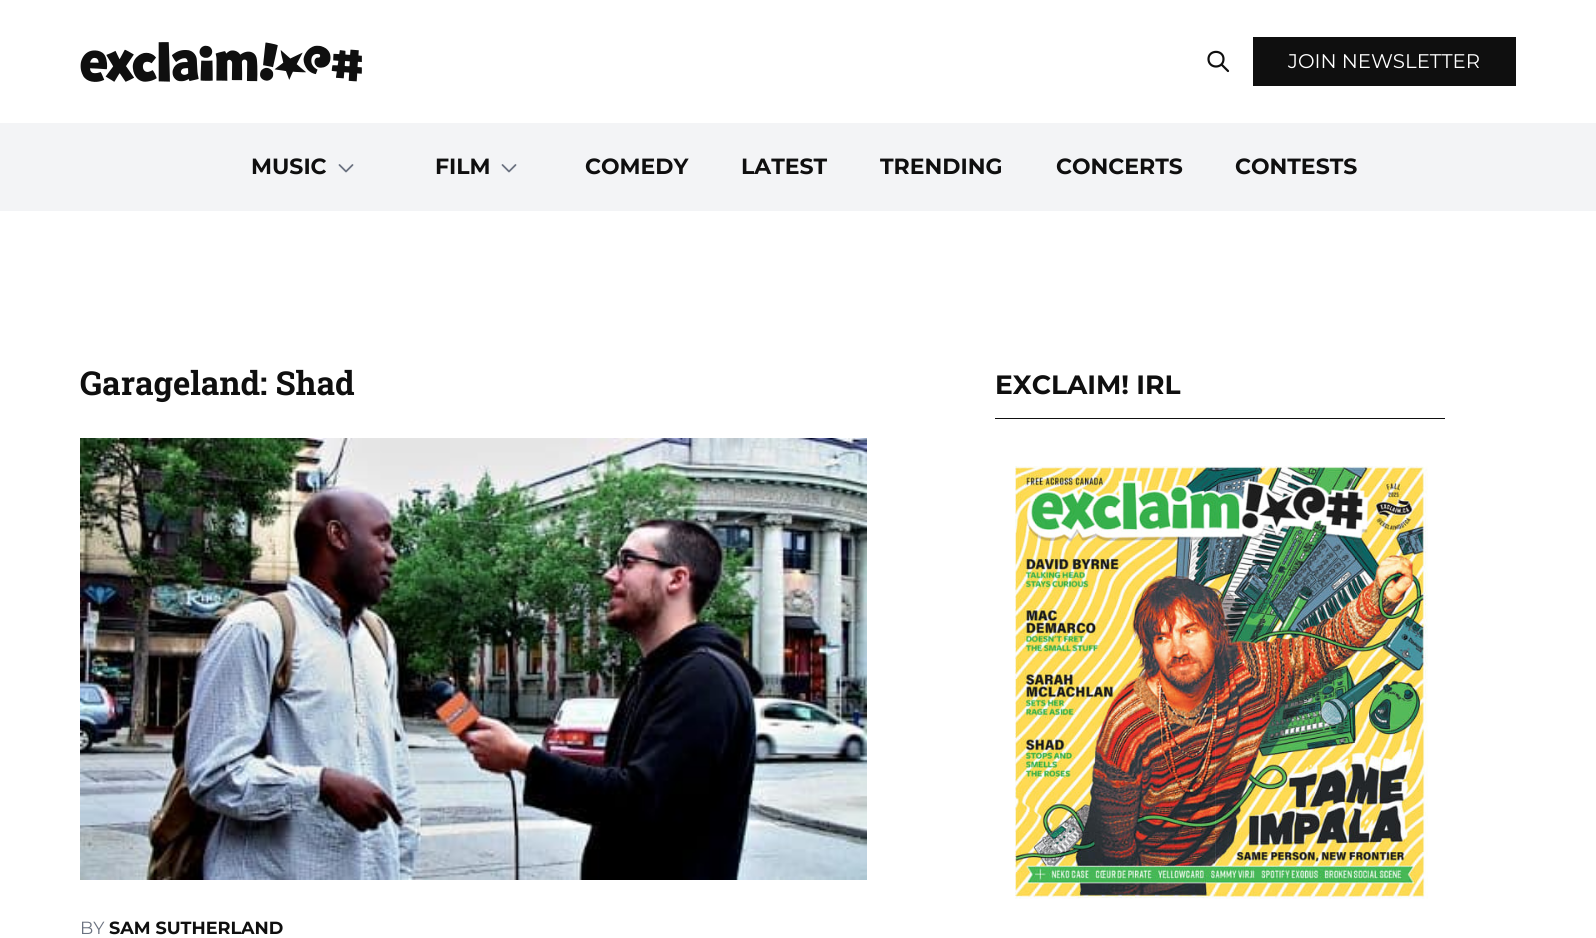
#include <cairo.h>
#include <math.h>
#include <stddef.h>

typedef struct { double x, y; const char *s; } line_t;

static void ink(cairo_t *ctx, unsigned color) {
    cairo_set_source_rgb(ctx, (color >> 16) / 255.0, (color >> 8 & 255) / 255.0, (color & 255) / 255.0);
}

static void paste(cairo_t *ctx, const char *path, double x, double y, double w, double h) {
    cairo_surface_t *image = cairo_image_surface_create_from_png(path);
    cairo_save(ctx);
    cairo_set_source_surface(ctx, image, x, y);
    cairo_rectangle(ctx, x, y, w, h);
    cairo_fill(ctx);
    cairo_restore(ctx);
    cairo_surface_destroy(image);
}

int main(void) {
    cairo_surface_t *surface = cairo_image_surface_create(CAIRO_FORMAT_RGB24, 1596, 938);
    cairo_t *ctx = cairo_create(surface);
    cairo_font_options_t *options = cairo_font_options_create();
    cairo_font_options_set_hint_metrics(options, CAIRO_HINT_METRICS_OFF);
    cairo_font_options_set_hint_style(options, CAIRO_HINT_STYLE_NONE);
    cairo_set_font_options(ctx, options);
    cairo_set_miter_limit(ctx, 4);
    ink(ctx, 0xFFFFFF);
    cairo_paint(ctx);
    paste(ctx, "media/1.png", 80, 42, 282, 40);
    cairo_new_path(ctx);
    cairo_move_to(ctx, 1228, 71);
    cairo_line_to(ctx, 1221.5, 64.5);
    cairo_move_to(ctx, 1223.5, 59);
    cairo_curve_to(ctx, 1223.5, 69, 1208.5, 69, 1208.5, 59);
    cairo_curve_to(ctx, 1208.5, 49.5, 1223.5, 49.5, 1223.5, 59);
    cairo_close_path(ctx);
    ink(ctx, 0x0F0F0F);
    cairo_set_line_width(ctx, 2.2);
    cairo_set_line_cap(ctx, CAIRO_LINE_CAP_ROUND);
    cairo_set_line_join(ctx, CAIRO_LINE_JOIN_ROUND);
    cairo_stroke(ctx);
    cairo_rectangle(ctx, 1253, 37, 263, 49);
    cairo_fill(ctx);
    cairo_select_font_face(ctx, "Montserrat", CAIRO_FONT_SLANT_NORMAL, CAIRO_FONT_WEIGHT_NORMAL);
    cairo_set_font_size(ctx, 19.75);
    ink(ctx, 0xFFFFFF);
    cairo_move_to(ctx, 1288, 68);
    cairo_show_text(ctx, "JOIN NEWSLETTER");
    ink(ctx, 0xF3F4F6);
    cairo_rectangle(ctx, 0, 123, 1596, 88);
    cairo_fill(ctx);
    cairo_select_font_face(ctx, "Montserrat", CAIRO_FONT_SLANT_NORMAL, CAIRO_FONT_WEIGHT_BOLD);
    cairo_set_font_size(ctx, 22);
    ink(ctx, 0x0F0F0F);
    cairo_move_to(ctx, 251, 174);
    cairo_show_text(ctx, "MUSIC");
    cairo_new_path(ctx);
    cairo_move_to(ctx, 352.5, 165);
    cairo_line_to(ctx, 346, 171.5);
    cairo_line_to(ctx, 339.5, 165);
    ink(ctx, 0x6B7280);
    cairo_set_line_width(ctx, 1.8);
    cairo_stroke(ctx);
    ink(ctx, 0x0F0F0F);
    cairo_move_to(ctx, 435, 174);
    cairo_show_text(ctx, "FILM");
    cairo_new_path(ctx);
    cairo_move_to(ctx, 515.5, 165);
    cairo_line_to(ctx, 509, 171.5);
    cairo_line_to(ctx, 502.5, 165);
    ink(ctx, 0x6B7280);
    cairo_stroke(ctx);
    ink(ctx, 0x0F0F0F);
    {
        static const line_t items[] = {
            {585, 174, "COMEDY"},
            {741, 174, "LATEST"},
            {880, 174, "TRENDING"},
            {1056, 174, "CONCERTS"},
            {1235, 174, "CONTESTS"},
        };
        for (size_t i = 0; i < sizeof items / sizeof *items; i++) {
            cairo_move_to(ctx, items[i].x, items[i].y);
            cairo_show_text(ctx, items[i].s);
        }
    }
    cairo_select_font_face(ctx, "Roboto Slab", CAIRO_FONT_SLANT_NORMAL, CAIRO_FONT_WEIGHT_BOLD);
    cairo_set_font_size(ctx, 33);
    cairo_move_to(ctx, 80, 395);
    cairo_show_text(ctx, "Garageland: Shad");
    paste(ctx, "media/2.png", 80, 438, 787, 442);
    cairo_select_font_face(ctx, "Montserrat", CAIRO_FONT_SLANT_NORMAL, CAIRO_FONT_WEIGHT_NORMAL);
    cairo_set_font_size(ctx, 17.6);
    ink(ctx, 0x6B7280);
    cairo_move_to(ctx, 80, 934);
    cairo_show_text(ctx, "BY");
    cairo_select_font_face(ctx, "Montserrat", CAIRO_FONT_SLANT_NORMAL, CAIRO_FONT_WEIGHT_BOLD);
    ink(ctx, 0x0F0F0F);
    cairo_move_to(ctx, 109, 934);
    cairo_show_text(ctx, "SAM SUTHERLAND");
    cairo_rectangle(ctx, 995, 418, 450, 1);
    cairo_fill(ctx);
    cairo_set_font_size(ctx, 26.5);
    cairo_move_to(ctx, 995, 394);
    cairo_show_text(ctx, "EXCLAIM! IRL");
    paste(ctx, "media/3.png", 1015, 466, 413, 433);
    cairo_surface_write_to_png(surface, "image.png");
    cairo_font_options_destroy(options);
    cairo_destroy(ctx);
    cairo_surface_destroy(surface);
    return 0;
}
